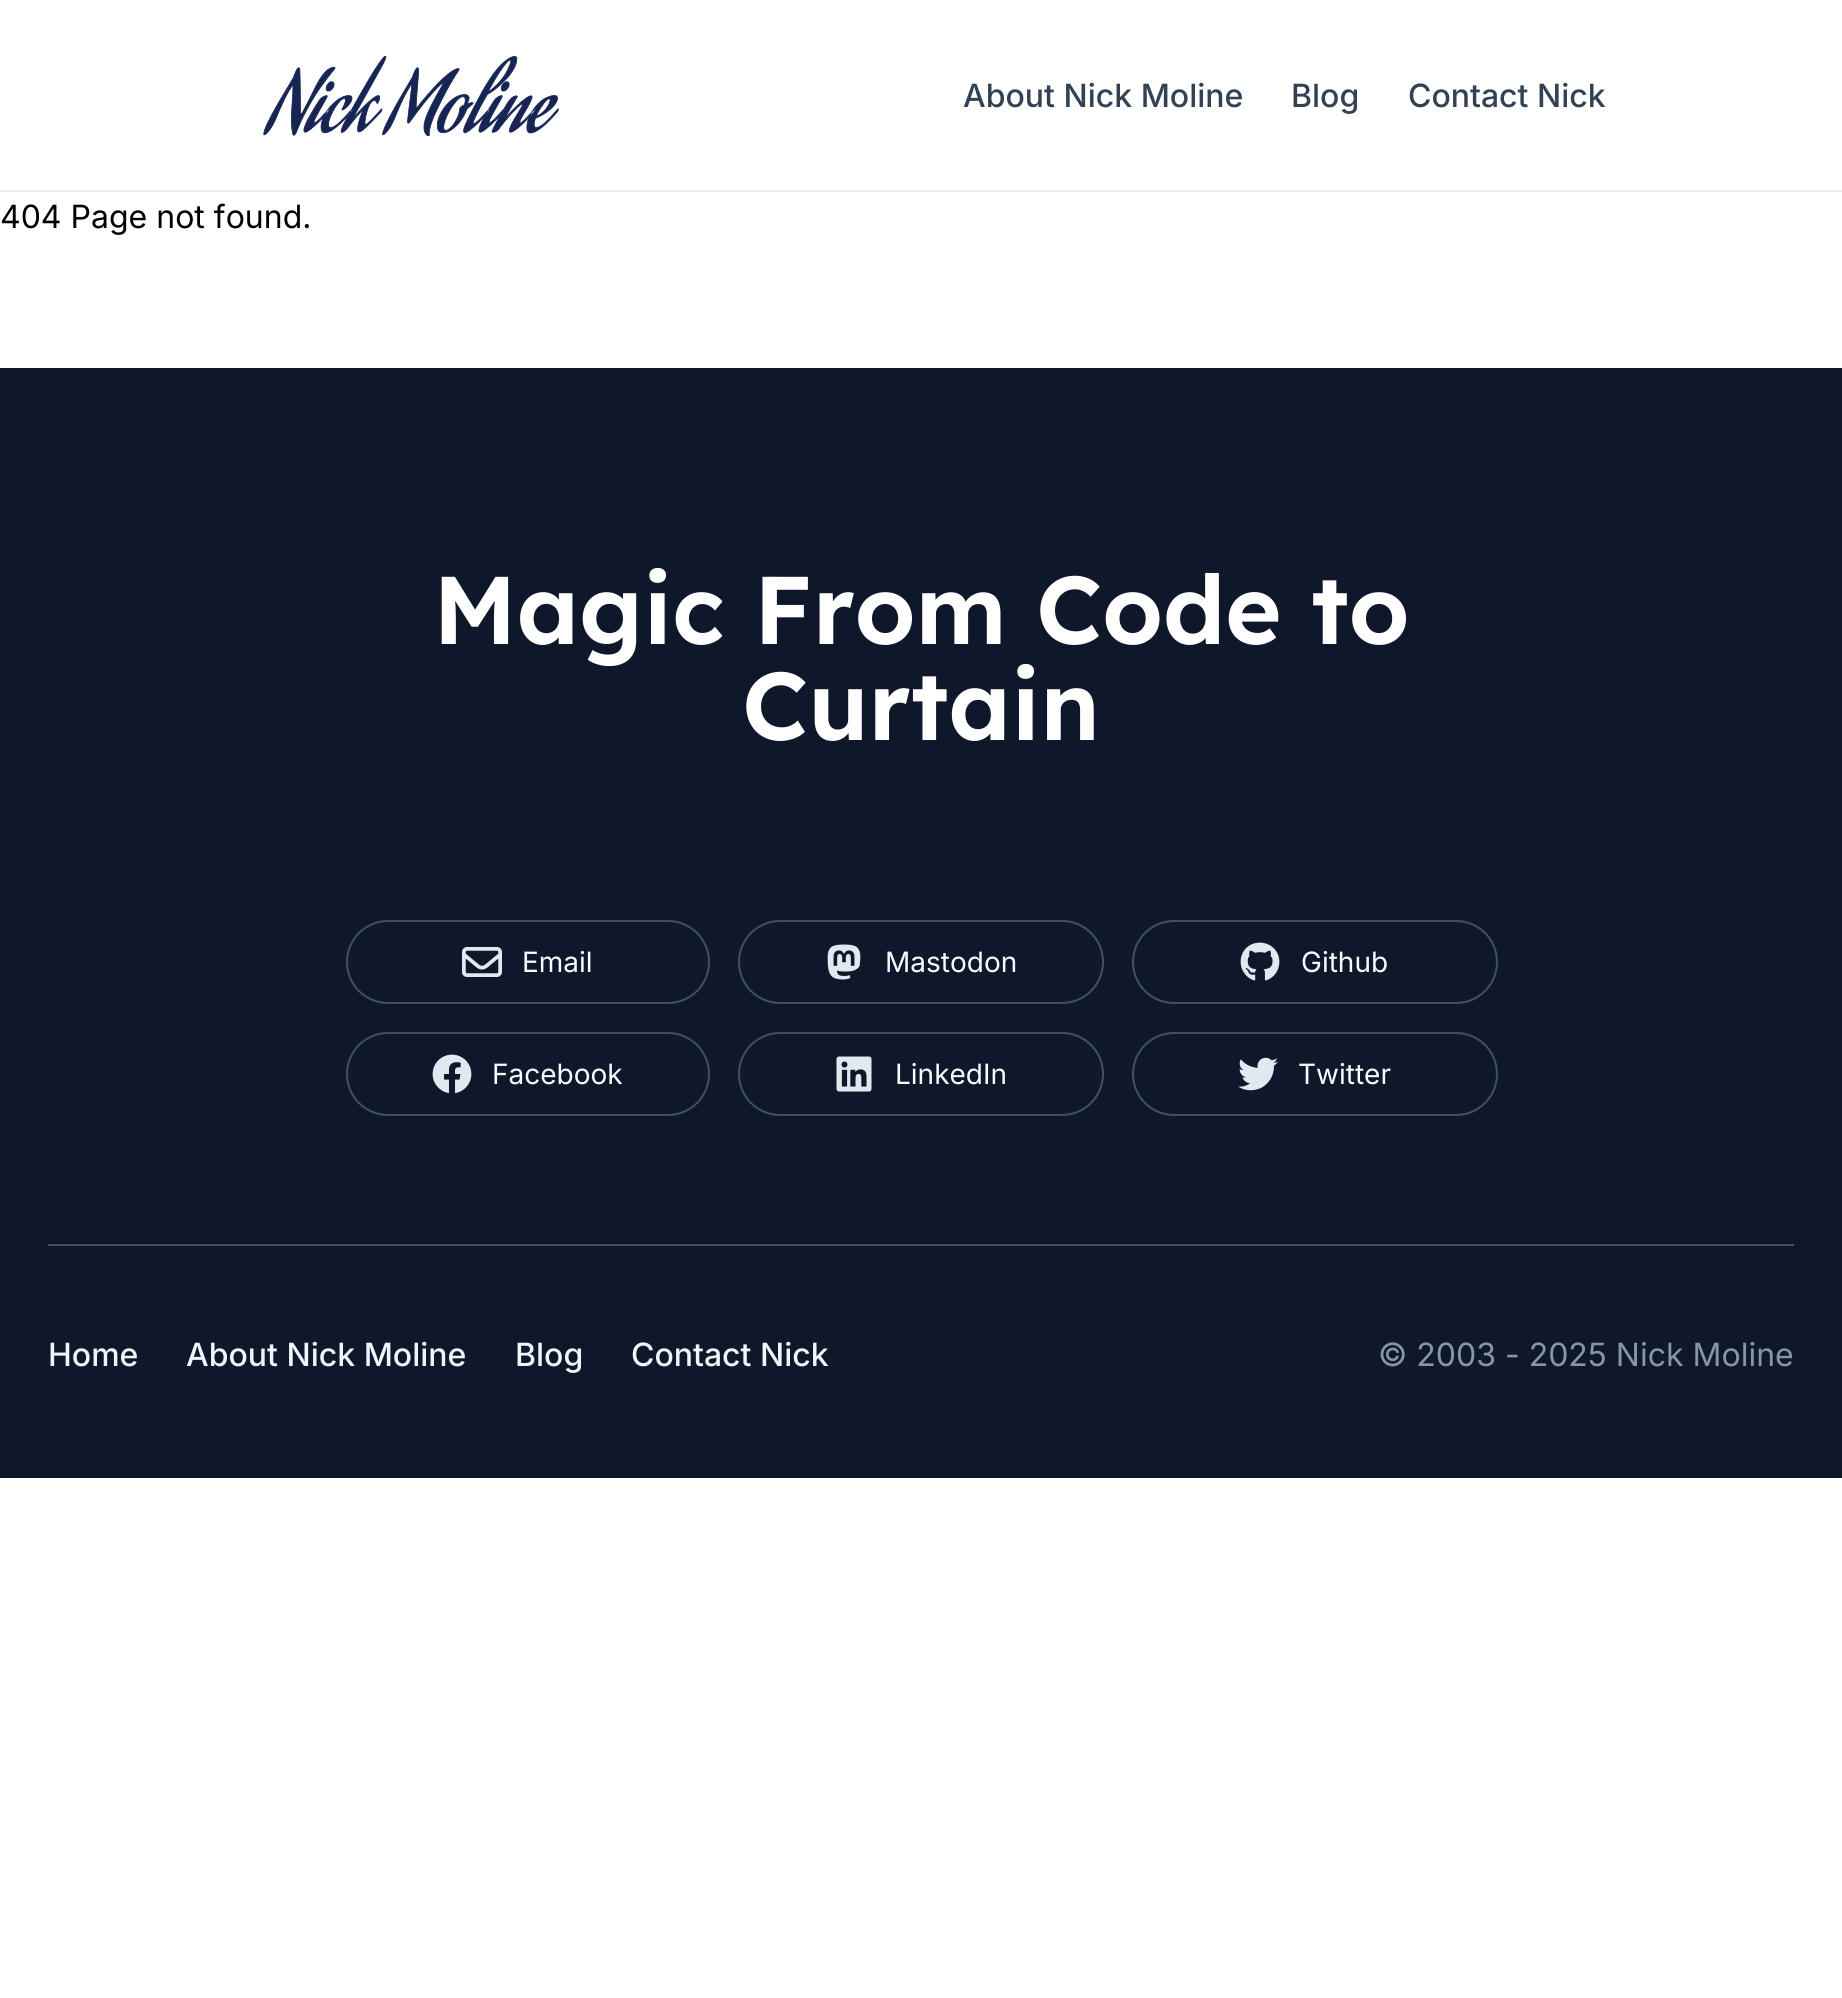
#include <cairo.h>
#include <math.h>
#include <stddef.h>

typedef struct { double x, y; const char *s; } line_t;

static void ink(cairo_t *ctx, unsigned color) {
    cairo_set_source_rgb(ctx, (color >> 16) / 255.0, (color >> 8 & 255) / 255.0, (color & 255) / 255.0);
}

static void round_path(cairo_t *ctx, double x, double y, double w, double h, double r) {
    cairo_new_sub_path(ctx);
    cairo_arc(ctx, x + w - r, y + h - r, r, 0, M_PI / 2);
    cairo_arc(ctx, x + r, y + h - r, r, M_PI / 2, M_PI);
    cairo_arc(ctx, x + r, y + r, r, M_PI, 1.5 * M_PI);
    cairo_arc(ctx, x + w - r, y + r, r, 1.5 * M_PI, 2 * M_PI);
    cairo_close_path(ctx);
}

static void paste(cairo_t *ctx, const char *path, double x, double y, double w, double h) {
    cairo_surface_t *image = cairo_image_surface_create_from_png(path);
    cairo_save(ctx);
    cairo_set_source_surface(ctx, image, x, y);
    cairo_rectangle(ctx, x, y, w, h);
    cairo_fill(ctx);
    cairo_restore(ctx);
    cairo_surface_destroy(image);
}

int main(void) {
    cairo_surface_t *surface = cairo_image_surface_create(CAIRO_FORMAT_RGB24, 1842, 1998);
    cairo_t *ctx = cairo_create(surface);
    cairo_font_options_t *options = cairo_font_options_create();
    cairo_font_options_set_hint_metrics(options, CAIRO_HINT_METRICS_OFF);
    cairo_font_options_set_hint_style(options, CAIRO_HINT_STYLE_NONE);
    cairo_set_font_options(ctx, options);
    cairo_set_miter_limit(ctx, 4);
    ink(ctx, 0xFFFFFF);
    cairo_paint(ctx);
    ink(ctx, 0xE8EDF3);
    cairo_rectangle(ctx, 0, 190, 1842, 2);
    cairo_fill(ctx);
    paste(ctx, "media/1.png", 263, 56, 296, 80);
    cairo_select_font_face(ctx, "Inter Medium", CAIRO_FONT_SLANT_NORMAL, CAIRO_FONT_WEIGHT_NORMAL);
    cairo_set_font_size(ctx, 32);
    ink(ctx, 0x334155);
    {
        static const line_t items[] = {
            {963, 107, "About Nick Moline"},
            {1291, 107, "Blog"},
            {1408, 107, "Contact Nick"},
        };
        for (size_t i = 0; i < sizeof items / sizeof *items; i++) {
            cairo_move_to(ctx, items[i].x, items[i].y);
            cairo_show_text(ctx, items[i].s);
        }
    }
    cairo_select_font_face(ctx, "Inter", CAIRO_FONT_SLANT_NORMAL, CAIRO_FONT_WEIGHT_NORMAL);
    ink(ctx, 0x000000);
    cairo_move_to(ctx, 0, 228);
    cairo_show_text(ctx, "404 Page not found.");
    ink(ctx, 0x0F172A);
    cairo_rectangle(ctx, 0, 368, 1842, 1110);
    cairo_fill(ctx);
    cairo_select_font_face(ctx, "Lexend SemiBold", CAIRO_FONT_SLANT_NORMAL, CAIRO_FONT_WEIGHT_NORMAL);
    cairo_set_font_size(ctx, 96);
    ink(ctx, 0xFFFFFF);
    cairo_move_to(ctx, 433, 644);
    cairo_show_text(ctx, "Magic From Code to");
    cairo_move_to(ctx, 742, 740);
    cairo_show_text(ctx, "Curtain");
    round_path(ctx, 347, 921, 362, 82, 41);
    ink(ctx, 0x414F63);
    cairo_stroke(ctx);
    paste(ctx, "media/2.png", 462, 947, 40, 30);
    cairo_select_font_face(ctx, "Inter", CAIRO_FONT_SLANT_NORMAL, CAIRO_FONT_WEIGHT_NORMAL);
    cairo_set_font_size(ctx, 28);
    ink(ctx, 0xF8FAFC);
    cairo_move_to(ctx, 522, 972);
    cairo_show_text(ctx, "Email");
    round_path(ctx, 739, 921, 364, 82, 41);
    ink(ctx, 0x414F63);
    cairo_stroke(ctx);
    paste(ctx, "media/3.png", 827, 944, 34, 36);
    ink(ctx, 0xF8FAFC);
    cairo_move_to(ctx, 885, 972);
    cairo_show_text(ctx, "Mastodon");
    round_path(ctx, 1133, 921, 364, 82, 41);
    ink(ctx, 0x414F63);
    cairo_stroke(ctx);
    paste(ctx, "media/4.png", 1240, 942, 40, 39);
    ink(ctx, 0xF8FAFC);
    cairo_move_to(ctx, 1301, 972);
    cairo_show_text(ctx, "Github");
    round_path(ctx, 347, 1033, 362, 82, 41);
    ink(ctx, 0x414F63);
    cairo_stroke(ctx);
    paste(ctx, "media/5.png", 432, 1054, 40, 40);
    ink(ctx, 0xF8FAFC);
    cairo_move_to(ctx, 492, 1084);
    cairo_show_text(ctx, "Facebook");
    round_path(ctx, 739, 1033, 364, 82, 41);
    ink(ctx, 0x414F63);
    cairo_stroke(ctx);
    paste(ctx, "media/6.png", 836, 1056, 36, 36);
    ink(ctx, 0xF8FAFC);
    cairo_move_to(ctx, 895, 1084);
    cairo_show_text(ctx, "LinkedIn");
    round_path(ctx, 1133, 1033, 364, 82, 41);
    ink(ctx, 0x414F63);
    cairo_stroke(ctx);
    paste(ctx, "media/7.png", 1238, 1057, 40, 34);
    ink(ctx, 0xF8FAFC);
    cairo_move_to(ctx, 1298, 1084);
    cairo_show_text(ctx, "Twitter");
    ink(ctx, 0x414F63);
    cairo_rectangle(ctx, 48, 1244, 1746, 2);
    cairo_fill(ctx);
    cairo_select_font_face(ctx, "Inter Medium", CAIRO_FONT_SLANT_NORMAL, CAIRO_FONT_WEIGHT_NORMAL);
    cairo_set_font_size(ctx, 32);
    ink(ctx, 0xF1F5F9);
    {
        static const line_t items[] = {
            {48, 1366, "Home"},
            {186, 1366, "About Nick Moline"},
            {515, 1366, "Blog"},
            {631, 1366, "Contact Nick"},
        };
        for (size_t i = 0; i < sizeof items / sizeof *items; i++) {
            cairo_move_to(ctx, items[i].x, items[i].y);
            cairo_show_text(ctx, items[i].s);
        }
    }
    cairo_select_font_face(ctx, "Inter", CAIRO_FONT_SLANT_NORMAL, CAIRO_FONT_WEIGHT_NORMAL);
    ink(ctx, 0x8795AA);
    cairo_move_to(ctx, 1378, 1366);
    cairo_show_text(ctx, "© 2003 - 2025 Nick Moline");
    cairo_surface_write_to_png(surface, "image.png");
    cairo_font_options_destroy(options);
    cairo_destroy(ctx);
    cairo_surface_destroy(surface);
    return 0;
}
